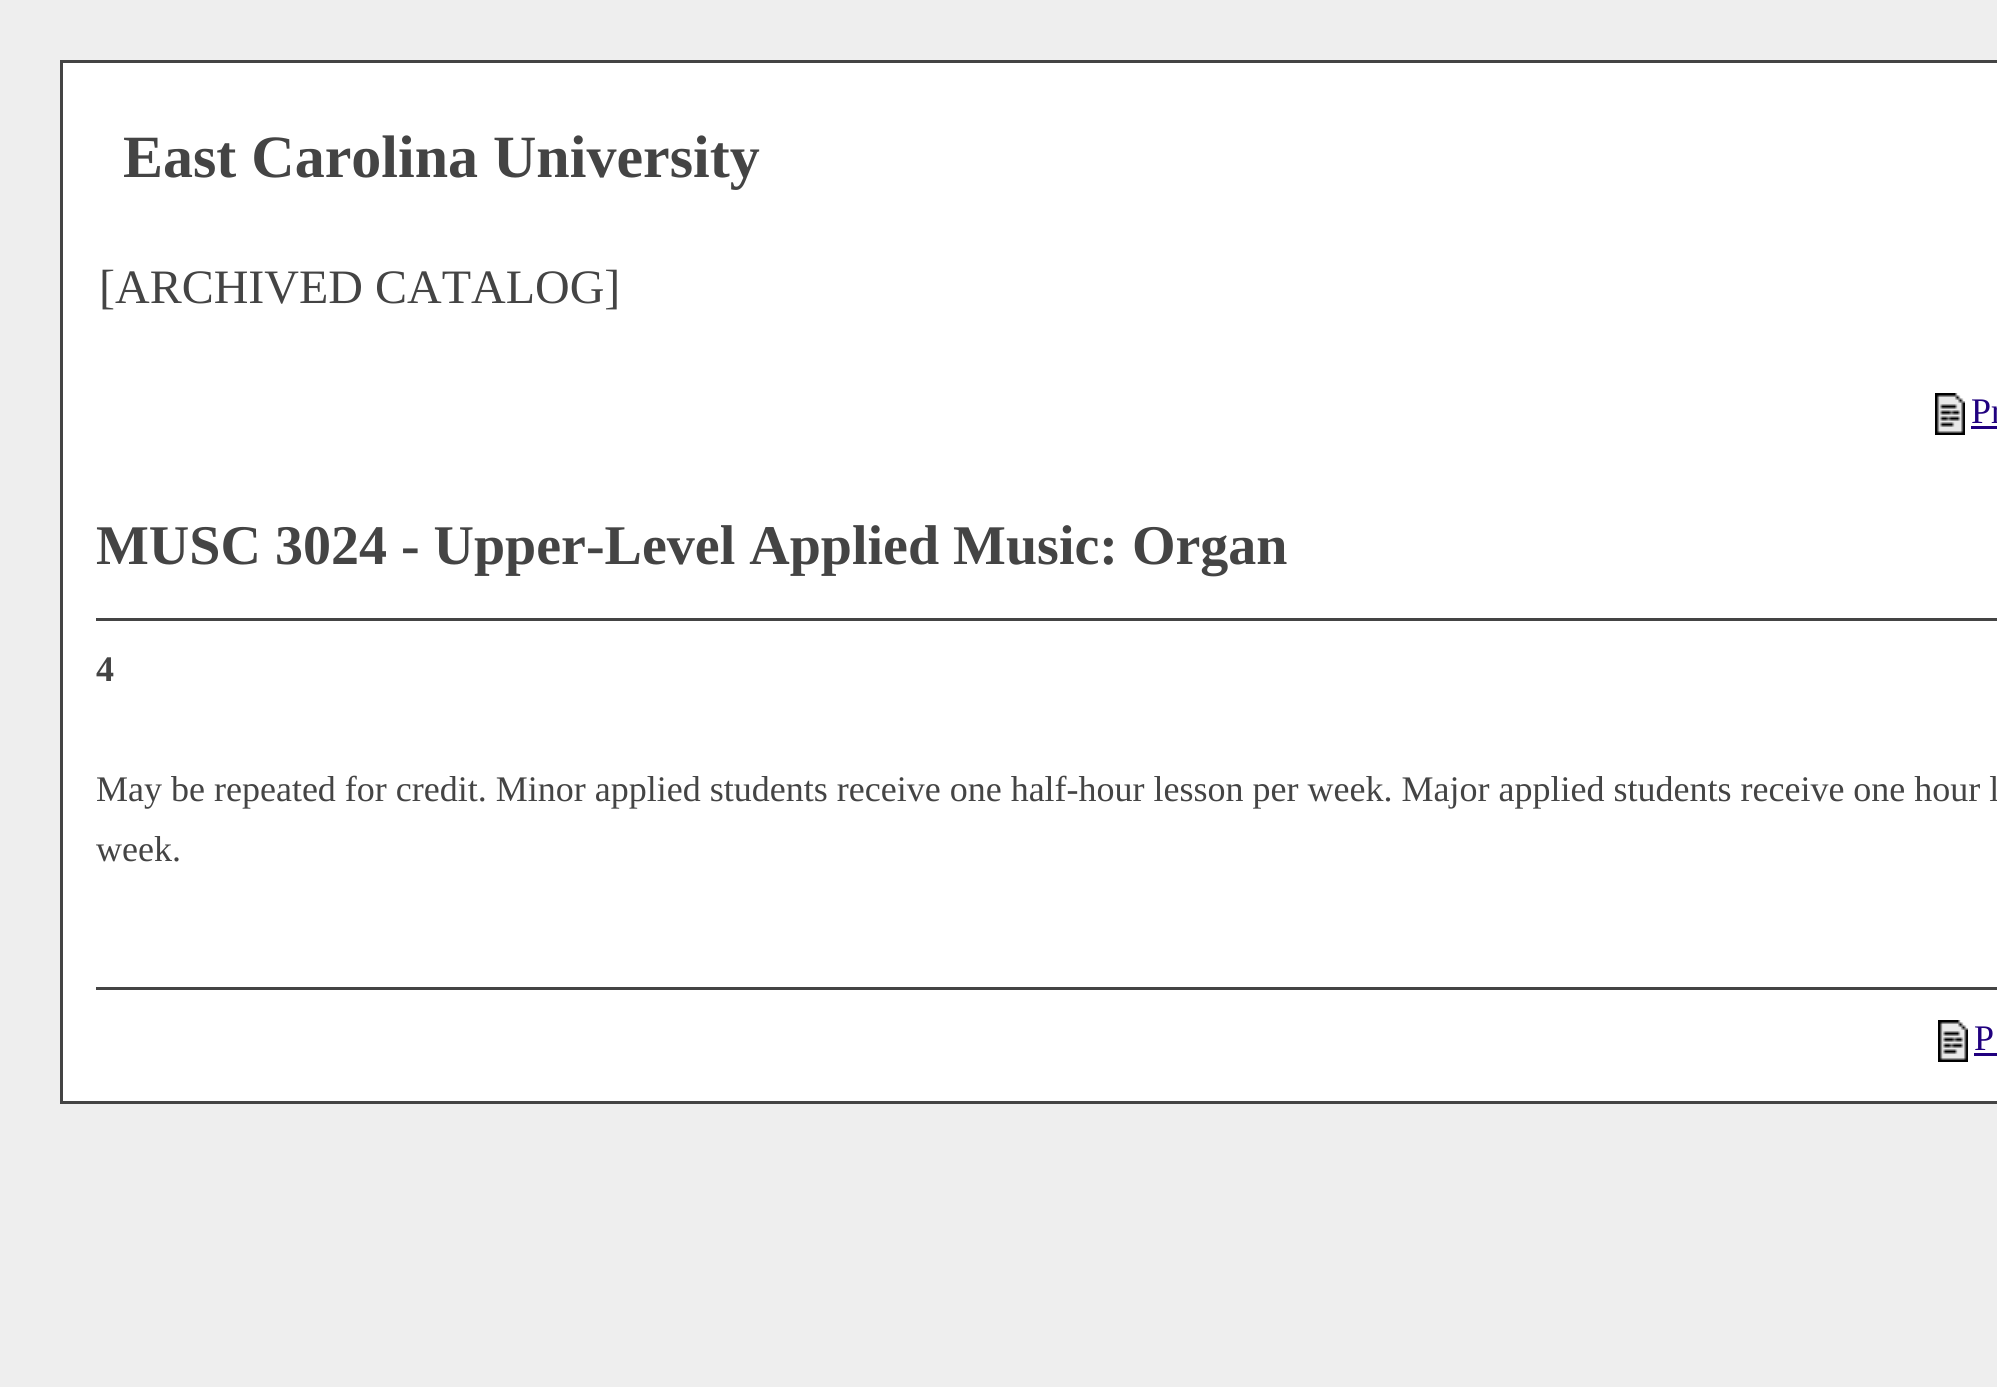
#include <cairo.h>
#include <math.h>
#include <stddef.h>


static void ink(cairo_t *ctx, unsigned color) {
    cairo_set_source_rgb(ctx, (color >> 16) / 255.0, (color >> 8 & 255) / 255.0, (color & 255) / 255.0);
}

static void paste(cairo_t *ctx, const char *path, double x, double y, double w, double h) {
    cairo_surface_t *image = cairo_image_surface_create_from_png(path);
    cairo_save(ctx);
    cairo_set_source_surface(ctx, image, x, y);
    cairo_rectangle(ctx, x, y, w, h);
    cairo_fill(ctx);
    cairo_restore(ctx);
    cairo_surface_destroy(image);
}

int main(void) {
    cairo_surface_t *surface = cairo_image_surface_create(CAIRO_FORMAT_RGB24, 1997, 1387);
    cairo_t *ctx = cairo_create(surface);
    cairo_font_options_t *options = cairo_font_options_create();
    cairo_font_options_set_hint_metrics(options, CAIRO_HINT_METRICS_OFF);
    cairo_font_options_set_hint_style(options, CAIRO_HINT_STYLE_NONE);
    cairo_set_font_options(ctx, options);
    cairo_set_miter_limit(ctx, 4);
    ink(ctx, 0xEEEEEE);
    cairo_paint(ctx);
    ink(ctx, 0xFFFFFF);
    cairo_rectangle(ctx, 61.5, 61.5, 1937, 1041);
    cairo_fill_preserve(ctx);
    ink(ctx, 0x444444);
    cairo_set_line_width(ctx, 3);
    cairo_stroke(ctx);
    cairo_select_font_face(ctx, "Liberation Serif", CAIRO_FONT_SLANT_NORMAL, CAIRO_FONT_WEIGHT_BOLD);
    cairo_set_font_size(ctx, 60);
    cairo_move_to(ctx, 123, 177);
    cairo_show_text(ctx, "East Carolina University");
    cairo_select_font_face(ctx, "Liberation Serif", CAIRO_FONT_SLANT_NORMAL, CAIRO_FONT_WEIGHT_NORMAL);
    cairo_set_font_size(ctx, 48);
    cairo_move_to(ctx, 99, 303);
    cairo_show_text(ctx, "[ARCHIVED CATALOG]");
    paste(ctx, "media/1.png", 1935, 393, 30, 42);
    cairo_set_font_size(ctx, 36);
    ink(ctx, 0x20007F);
    cairo_move_to(ctx, 1971, 423);
    cairo_show_text(ctx, "Pr");
    cairo_rectangle(ctx, 1971, 426, 26, 3);
    cairo_fill(ctx);
    cairo_select_font_face(ctx, "Liberation Serif", CAIRO_FONT_SLANT_NORMAL, CAIRO_FONT_WEIGHT_BOLD);
    cairo_set_font_size(ctx, 56);
    ink(ctx, 0x444444);
    cairo_move_to(ctx, 96, 564);
    cairo_show_text(ctx, "MUSC 3024 - Upper-Level Applied Music: Organ");
    cairo_rectangle(ctx, 96, 618, 1901, 3);
    cairo_fill(ctx);
    cairo_set_font_size(ctx, 36);
    cairo_move_to(ctx, 96, 681);
    cairo_show_text(ctx, "4");
    cairo_select_font_face(ctx, "Liberation Serif", CAIRO_FONT_SLANT_NORMAL, CAIRO_FONT_WEIGHT_NORMAL);
    cairo_move_to(ctx, 96, 801);
    cairo_show_text(ctx, "May be repeated for credit. Minor applied students receive one half-hour lesson per week. Major applied students receive one hour l");
    cairo_move_to(ctx, 96, 861);
    cairo_show_text(ctx, "week.");
    cairo_rectangle(ctx, 96, 987, 1901, 3);
    cairo_fill(ctx);
    paste(ctx, "media/1.png", 1938, 1020, 30, 42);
    ink(ctx, 0x20007F);
    cairo_move_to(ctx, 1974, 1050);
    cairo_show_text(ctx, "P");
    cairo_rectangle(ctx, 1974, 1053, 23, 3);
    cairo_fill(ctx);
    cairo_surface_write_to_png(surface, "image.png");
    cairo_font_options_destroy(options);
    cairo_destroy(ctx);
    cairo_surface_destroy(surface);
    return 0;
}
